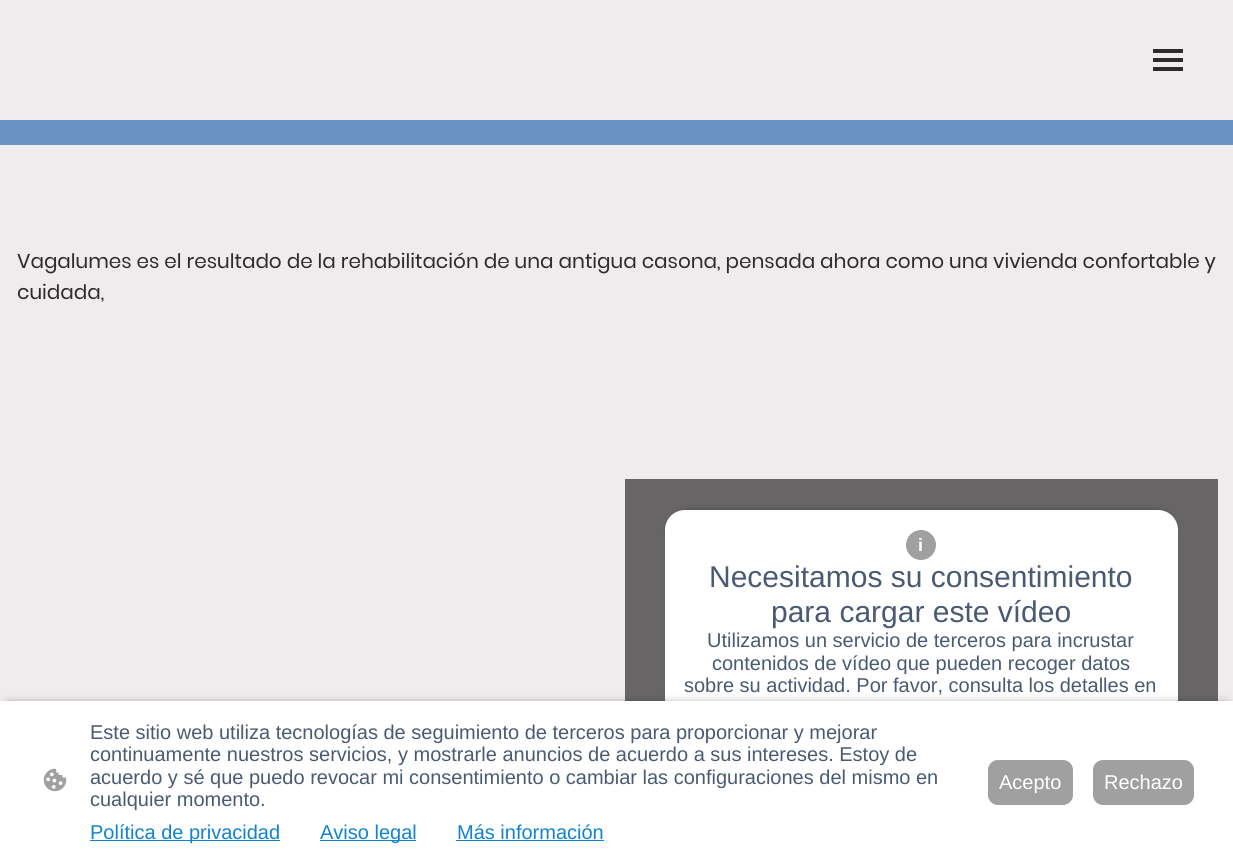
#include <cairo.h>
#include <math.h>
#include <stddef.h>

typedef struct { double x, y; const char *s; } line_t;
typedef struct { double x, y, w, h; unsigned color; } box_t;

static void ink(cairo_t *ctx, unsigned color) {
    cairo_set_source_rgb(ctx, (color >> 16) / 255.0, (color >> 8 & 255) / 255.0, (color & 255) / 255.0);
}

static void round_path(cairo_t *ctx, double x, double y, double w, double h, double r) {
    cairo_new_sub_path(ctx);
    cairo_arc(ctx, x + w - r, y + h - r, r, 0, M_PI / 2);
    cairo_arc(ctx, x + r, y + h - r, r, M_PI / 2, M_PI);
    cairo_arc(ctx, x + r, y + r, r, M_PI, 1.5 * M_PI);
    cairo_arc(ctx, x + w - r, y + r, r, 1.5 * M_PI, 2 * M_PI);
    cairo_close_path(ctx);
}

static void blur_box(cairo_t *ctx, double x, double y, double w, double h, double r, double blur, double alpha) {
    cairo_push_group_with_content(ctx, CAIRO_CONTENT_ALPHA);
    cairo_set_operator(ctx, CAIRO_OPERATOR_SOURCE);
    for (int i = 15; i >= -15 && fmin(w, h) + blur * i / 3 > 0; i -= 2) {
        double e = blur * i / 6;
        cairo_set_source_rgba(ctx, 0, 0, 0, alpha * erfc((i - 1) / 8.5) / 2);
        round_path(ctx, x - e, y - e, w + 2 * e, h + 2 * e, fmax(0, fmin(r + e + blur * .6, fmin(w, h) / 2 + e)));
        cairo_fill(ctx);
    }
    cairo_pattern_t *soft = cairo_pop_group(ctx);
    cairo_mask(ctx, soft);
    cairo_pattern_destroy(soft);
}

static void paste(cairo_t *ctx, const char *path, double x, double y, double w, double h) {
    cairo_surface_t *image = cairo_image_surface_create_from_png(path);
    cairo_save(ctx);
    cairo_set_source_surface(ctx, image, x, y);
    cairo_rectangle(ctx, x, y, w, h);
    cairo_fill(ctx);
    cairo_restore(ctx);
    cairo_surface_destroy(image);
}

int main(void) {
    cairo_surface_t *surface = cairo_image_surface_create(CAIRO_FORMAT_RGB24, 1233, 863);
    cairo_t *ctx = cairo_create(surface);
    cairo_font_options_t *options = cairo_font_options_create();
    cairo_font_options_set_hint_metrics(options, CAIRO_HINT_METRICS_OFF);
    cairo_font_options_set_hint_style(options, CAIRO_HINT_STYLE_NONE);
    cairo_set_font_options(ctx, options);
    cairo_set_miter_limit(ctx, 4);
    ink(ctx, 0xF0EBEC);
    cairo_paint(ctx);
    {
        static const box_t items[] = {
            {1153, 49, 30, 4, 0x2C2C2C},
            {1153, 58, 30, 4, 0x2C2C2C},
            {1153, 67, 30, 4, 0x2C2C2C},
            {0, 120, 1233, 25, 0x6A93C3},
        };
        for (size_t i = 0; i < sizeof items / sizeof *items; i++) {
            ink(ctx, items[i].color);
            cairo_rectangle(ctx, items[i].x, items[i].y, items[i].w, items[i].h);
            cairo_fill(ctx);
        }
    }
    cairo_select_font_face(ctx, "Poppins", CAIRO_FONT_SLANT_NORMAL, CAIRO_FONT_WEIGHT_NORMAL);
    cairo_set_font_size(ctx, 20);
    ink(ctx, 0x2C2C2C);
    cairo_move_to(ctx, 17, 268);
    cairo_show_text(ctx, "Vagalumes es el resultado de la rehabilitación de una antigua casona, pensada ahora como una vivienda confortable y");
    cairo_move_to(ctx, 17, 299);
    cairo_show_text(ctx, "cuidada,");
    ink(ctx, 0x676566);
    cairo_rectangle(ctx, 625, 479, 593, 222);
    cairo_fill(ctx);
    ink(ctx, 0x000000);
    blur_box(ctx, 673, 514, 497, 232, 13, 5, 0.63);
    ink(ctx, 0xFFFFFF);
    round_path(ctx, 665, 510, 513, 248, 20);
    cairo_fill(ctx);
    ink(ctx, 0xA0A0A0);
    cairo_arc(ctx, 921, 545, 15, 0, 2 * M_PI);
    cairo_fill(ctx);
    cairo_select_font_face(ctx, "Liberation Sans", CAIRO_FONT_SLANT_NORMAL, CAIRO_FONT_WEIGHT_BOLD);
    cairo_set_font_size(ctx, 18);
    ink(ctx, 0xFFFFFF);
    cairo_move_to(ctx, 918, 551);
    cairo_show_text(ctx, "i");
    cairo_select_font_face(ctx, "Liberation Sans", CAIRO_FONT_SLANT_NORMAL, CAIRO_FONT_WEIGHT_NORMAL);
    cairo_set_font_size(ctx, 30);
    ink(ctx, 0x4A5A73);
    cairo_move_to(ctx, 709, 587);
    cairo_show_text(ctx, "Necesitamos su consentimiento");
    cairo_move_to(ctx, 771, 622);
    cairo_show_text(ctx, "para cargar este vídeo");
    cairo_set_font_size(ctx, 20);
    {
        static const line_t items[] = {
            {707, 647, "Utilizamos un servicio de terceros para incrustar"},
            {712, 670, "contenidos de vídeo que pueden recoger datos"},
            {684, 692, "sobre su actividad. Por favor, consulta los detalles en"},
        };
        for (size_t i = 0; i < sizeof items / sizeof *items; i++) {
            cairo_move_to(ctx, items[i].x, items[i].y);
            cairo_show_text(ctx, items[i].s);
        }
    }
    ink(ctx, 0x000000);
    blur_box(ctx, 8, 705, 1218, 148, 0, 5, 0.63);
    ink(ctx, 0xFFFFFF);
    cairo_rectangle(ctx, 0, 701, 1233, 162);
    cairo_fill(ctx);
    paste(ctx, "media/1.png", 43, 768, 24, 24);
    ink(ctx, 0x4A5A73);
    {
        static const line_t items[] = {
            {90, 739, "Este sitio web utiliza tecnologías de seguimiento de terceros para proporcionar y mejorar"},
            {90, 761, "continuamente nuestros servicios, y mostrarle anuncios de acuerdo a sus intereses. Estoy de"},
            {90, 784, "acuerdo y sé que puedo revocar mi consentimiento o cambiar las configuraciones del mismo en"},
            {90, 806, "cualquier momento."},
        };
        for (size_t i = 0; i < sizeof items / sizeof *items; i++) {
            cairo_move_to(ctx, items[i].x, items[i].y);
            cairo_show_text(ctx, items[i].s);
        }
    }
    ink(ctx, 0x1183D1);
    cairo_rectangle(ctx, 90, 840, 190, 1);
    cairo_fill(ctx);
    cairo_move_to(ctx, 90, 839);
    cairo_show_text(ctx, "Política de privacidad");
    cairo_rectangle(ctx, 320, 840, 96, 1);
    cairo_fill(ctx);
    cairo_move_to(ctx, 320, 839);
    cairo_show_text(ctx, "Aviso legal");
    cairo_move_to(ctx, 457, 839);
    cairo_show_text(ctx, "Más información");
    cairo_rectangle(ctx, 456, 840, 148, 1);
    cairo_fill(ctx);
    ink(ctx, 0xA0A0A0);
    round_path(ctx, 988.5, 760.5, 84, 44, 9.5);
    cairo_fill_preserve(ctx);
    cairo_set_line_width(ctx, 1);
    cairo_stroke(ctx);
    ink(ctx, 0xFFFFFF);
    cairo_move_to(ctx, 999, 789);
    cairo_show_text(ctx, "Acepto");
    ink(ctx, 0xA0A0A0);
    round_path(ctx, 1093.5, 760.5, 100, 44, 9.5);
    cairo_fill_preserve(ctx);
    cairo_stroke(ctx);
    ink(ctx, 0xFFFFFF);
    cairo_move_to(ctx, 1104, 789);
    cairo_show_text(ctx, "Rechazo");
    cairo_surface_write_to_png(surface, "image.png");
    cairo_font_options_destroy(options);
    cairo_destroy(ctx);
    cairo_surface_destroy(surface);
    return 0;
}
